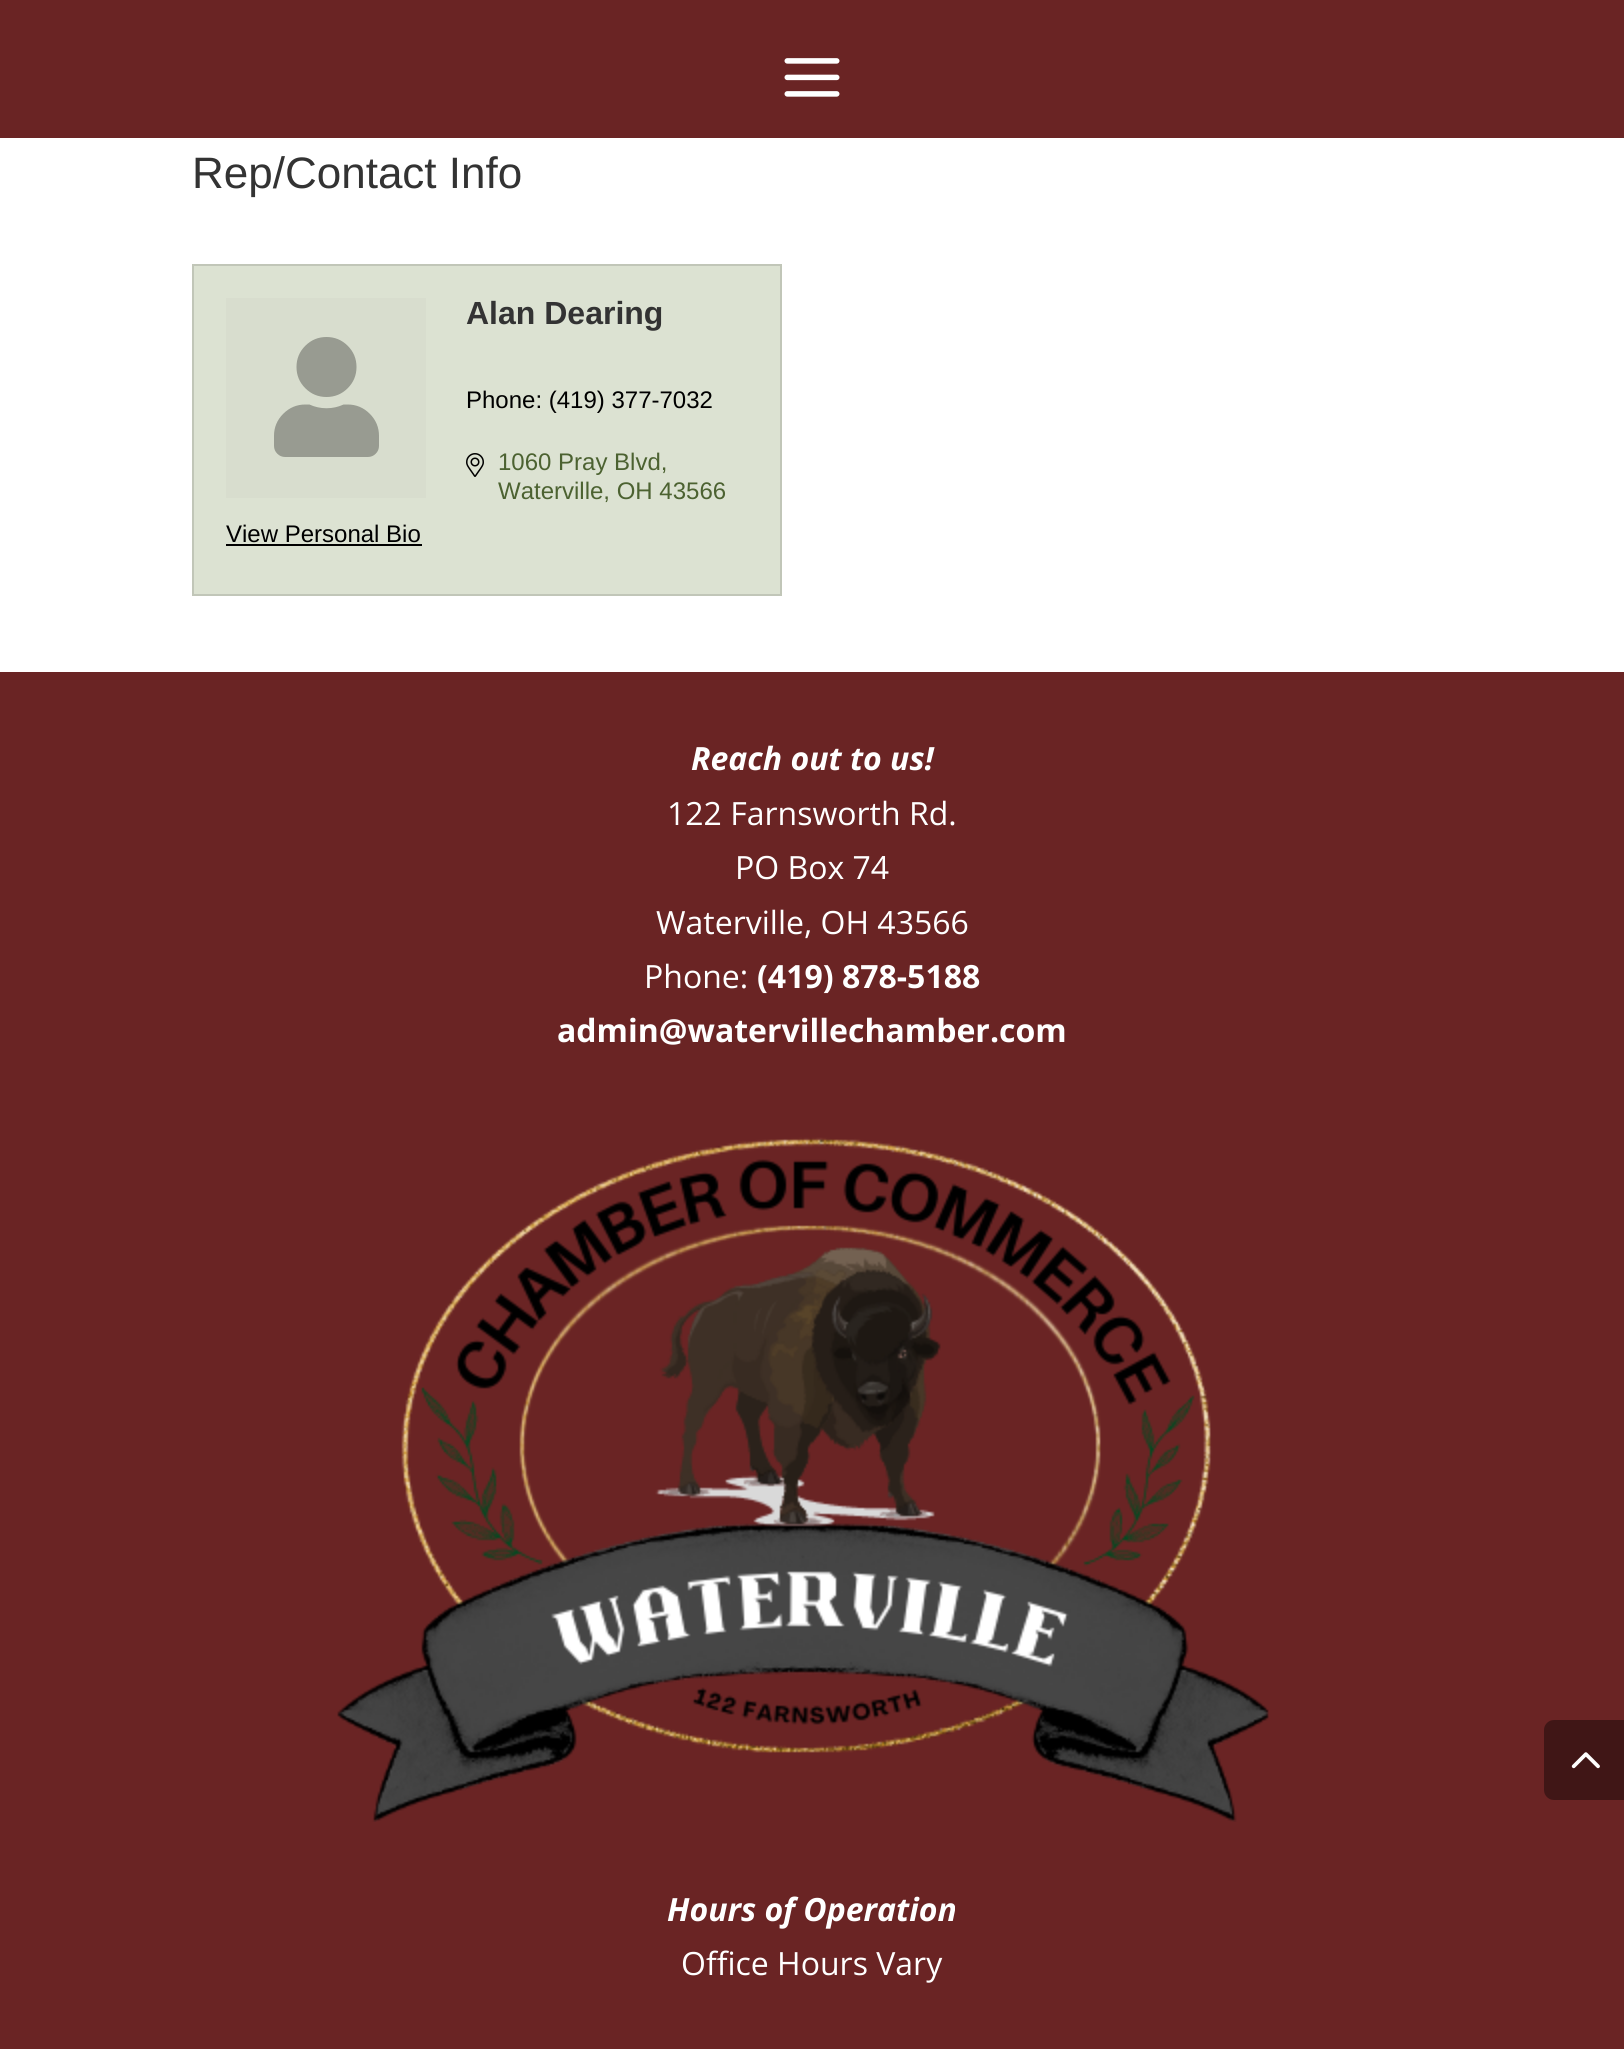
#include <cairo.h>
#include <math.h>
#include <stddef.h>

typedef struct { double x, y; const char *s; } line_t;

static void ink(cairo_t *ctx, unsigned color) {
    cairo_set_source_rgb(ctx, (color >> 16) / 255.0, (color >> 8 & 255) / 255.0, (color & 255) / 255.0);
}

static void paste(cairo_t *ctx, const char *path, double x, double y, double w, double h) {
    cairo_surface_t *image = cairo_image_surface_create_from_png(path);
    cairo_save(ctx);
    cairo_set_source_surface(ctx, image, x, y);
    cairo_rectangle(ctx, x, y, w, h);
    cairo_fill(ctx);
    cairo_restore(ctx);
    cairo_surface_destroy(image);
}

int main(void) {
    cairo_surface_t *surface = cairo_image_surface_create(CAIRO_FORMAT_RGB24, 1624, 2049);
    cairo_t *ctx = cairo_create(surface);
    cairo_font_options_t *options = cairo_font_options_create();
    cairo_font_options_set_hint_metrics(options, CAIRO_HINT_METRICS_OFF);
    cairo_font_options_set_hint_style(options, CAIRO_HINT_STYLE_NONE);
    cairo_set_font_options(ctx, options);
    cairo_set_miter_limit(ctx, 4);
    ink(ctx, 0xFFFFFF);
    cairo_paint(ctx);
    ink(ctx, 0x6A2424);
    cairo_rectangle(ctx, 0, 0, 1624, 138);
    cairo_fill(ctx);
    paste(ctx, "media/1.png", 784, 58, 56, 39);
    cairo_select_font_face(ctx, "Liberation Sans", CAIRO_FONT_SLANT_NORMAL, CAIRO_FONT_WEIGHT_NORMAL);
    cairo_set_font_size(ctx, 44);
    ink(ctx, 0x333333);
    cairo_move_to(ctx, 192, 188);
    cairo_show_text(ctx, "Rep/Contact Info");
    ink(ctx, 0xDCE2D2);
    cairo_rectangle(ctx, 193, 265, 588, 330);
    cairo_fill_preserve(ctx);
    ink(ctx, 0xC1C6B8);
    cairo_stroke(ctx);
    cairo_select_font_face(ctx, "Liberation Sans", CAIRO_FONT_SLANT_NORMAL, CAIRO_FONT_WEIGHT_BOLD);
    cairo_set_font_size(ctx, 32);
    ink(ctx, 0x333333);
    cairo_move_to(ctx, 466, 324);
    cairo_show_text(ctx, "Alan Dearing");
    cairo_select_font_face(ctx, "Liberation Sans", CAIRO_FONT_SLANT_NORMAL, CAIRO_FONT_WEIGHT_NORMAL);
    cairo_set_font_size(ctx, 24);
    ink(ctx, 0x000000);
    cairo_move_to(ctx, 466, 408);
    cairo_show_text(ctx, "Phone: (419) 377-7032");
    paste(ctx, "media/2.png", 466, 453, 18, 24);
    ink(ctx, 0x4C6231);
    cairo_move_to(ctx, 498, 470);
    cairo_show_text(ctx, "1060 Pray Blvd,");
    cairo_move_to(ctx, 498, 499);
    cairo_show_text(ctx, "Waterville, OH 43566");
    ink(ctx, 0xD8DDCE);
    cairo_rectangle(ctx, 226, 298, 200, 200);
    cairo_fill(ctx);
    paste(ctx, "media/3.png", 274, 337, 105, 120);
    ink(ctx, 0x000000);
    cairo_move_to(ctx, 226, 542);
    cairo_show_text(ctx, "View Personal Bio");
    cairo_rectangle(ctx, 226, 544, 196, 2);
    cairo_fill(ctx);
    ink(ctx, 0x6A2424);
    cairo_rectangle(ctx, 0, 672, 1624, 1377);
    cairo_fill(ctx);
    cairo_select_font_face(ctx, "Open Sans", CAIRO_FONT_SLANT_ITALIC, CAIRO_FONT_WEIGHT_BOLD);
    cairo_set_font_size(ctx, 32);
    ink(ctx, 0xFFFFFF);
    cairo_move_to(ctx, 691, 770);
    cairo_show_text(ctx, "Reach out to us!");
    cairo_select_font_face(ctx, "Open Sans", CAIRO_FONT_SLANT_NORMAL, CAIRO_FONT_WEIGHT_NORMAL);
    {
        static const line_t items[] = {
            {667, 825, "122 Farnsworth Rd."},
            {735, 879, "PO Box 74"},
            {656, 934, "Waterville, OH 43566"},
            {644, 988, "Phone:"},
        };
        for (size_t i = 0; i < sizeof items / sizeof *items; i++) {
            cairo_move_to(ctx, items[i].x, items[i].y);
            cairo_show_text(ctx, items[i].s);
        }
    }
    cairo_select_font_face(ctx, "Open Sans", CAIRO_FONT_SLANT_NORMAL, CAIRO_FONT_WEIGHT_BOLD);
    cairo_move_to(ctx, 757, 988);
    cairo_show_text(ctx, "(419) 878-5188");
    cairo_move_to(ctx, 557, 1042);
    cairo_show_text(ctx, "admin@watervillechamber.com");
    paste(ctx, "media/4.png", 337, 1137, 932, 685);
    cairo_select_font_face(ctx, "Open Sans", CAIRO_FONT_SLANT_ITALIC, CAIRO_FONT_WEIGHT_BOLD);
    cairo_move_to(ctx, 667, 1921);
    cairo_show_text(ctx, "Hours of Operation");
    cairo_select_font_face(ctx, "Open Sans", CAIRO_FONT_SLANT_NORMAL, CAIRO_FONT_WEIGHT_NORMAL);
    cairo_move_to(ctx, 681, 1975);
    cairo_show_text(ctx, "Office Hours Vary");
    ink(ctx, 0x401616);
    cairo_new_path(ctx);
    cairo_move_to(ctx, 1554, 1720);
    cairo_line_to(ctx, 1624, 1720);
    cairo_line_to(ctx, 1624, 1800);
    cairo_line_to(ctx, 1554, 1800);
    cairo_curve_to(ctx, 1548.5, 1800, 1544, 1795.5, 1544, 1790);
    cairo_line_to(ctx, 1544, 1730);
    cairo_curve_to(ctx, 1544, 1724.5, 1548.5, 1720, 1554, 1720);
    cairo_close_path(ctx);
    cairo_fill(ctx);
    paste(ctx, "media/5.png", 1571, 1752, 29, 17);
    cairo_surface_write_to_png(surface, "image.png");
    cairo_font_options_destroy(options);
    cairo_destroy(ctx);
    cairo_surface_destroy(surface);
    return 0;
}
